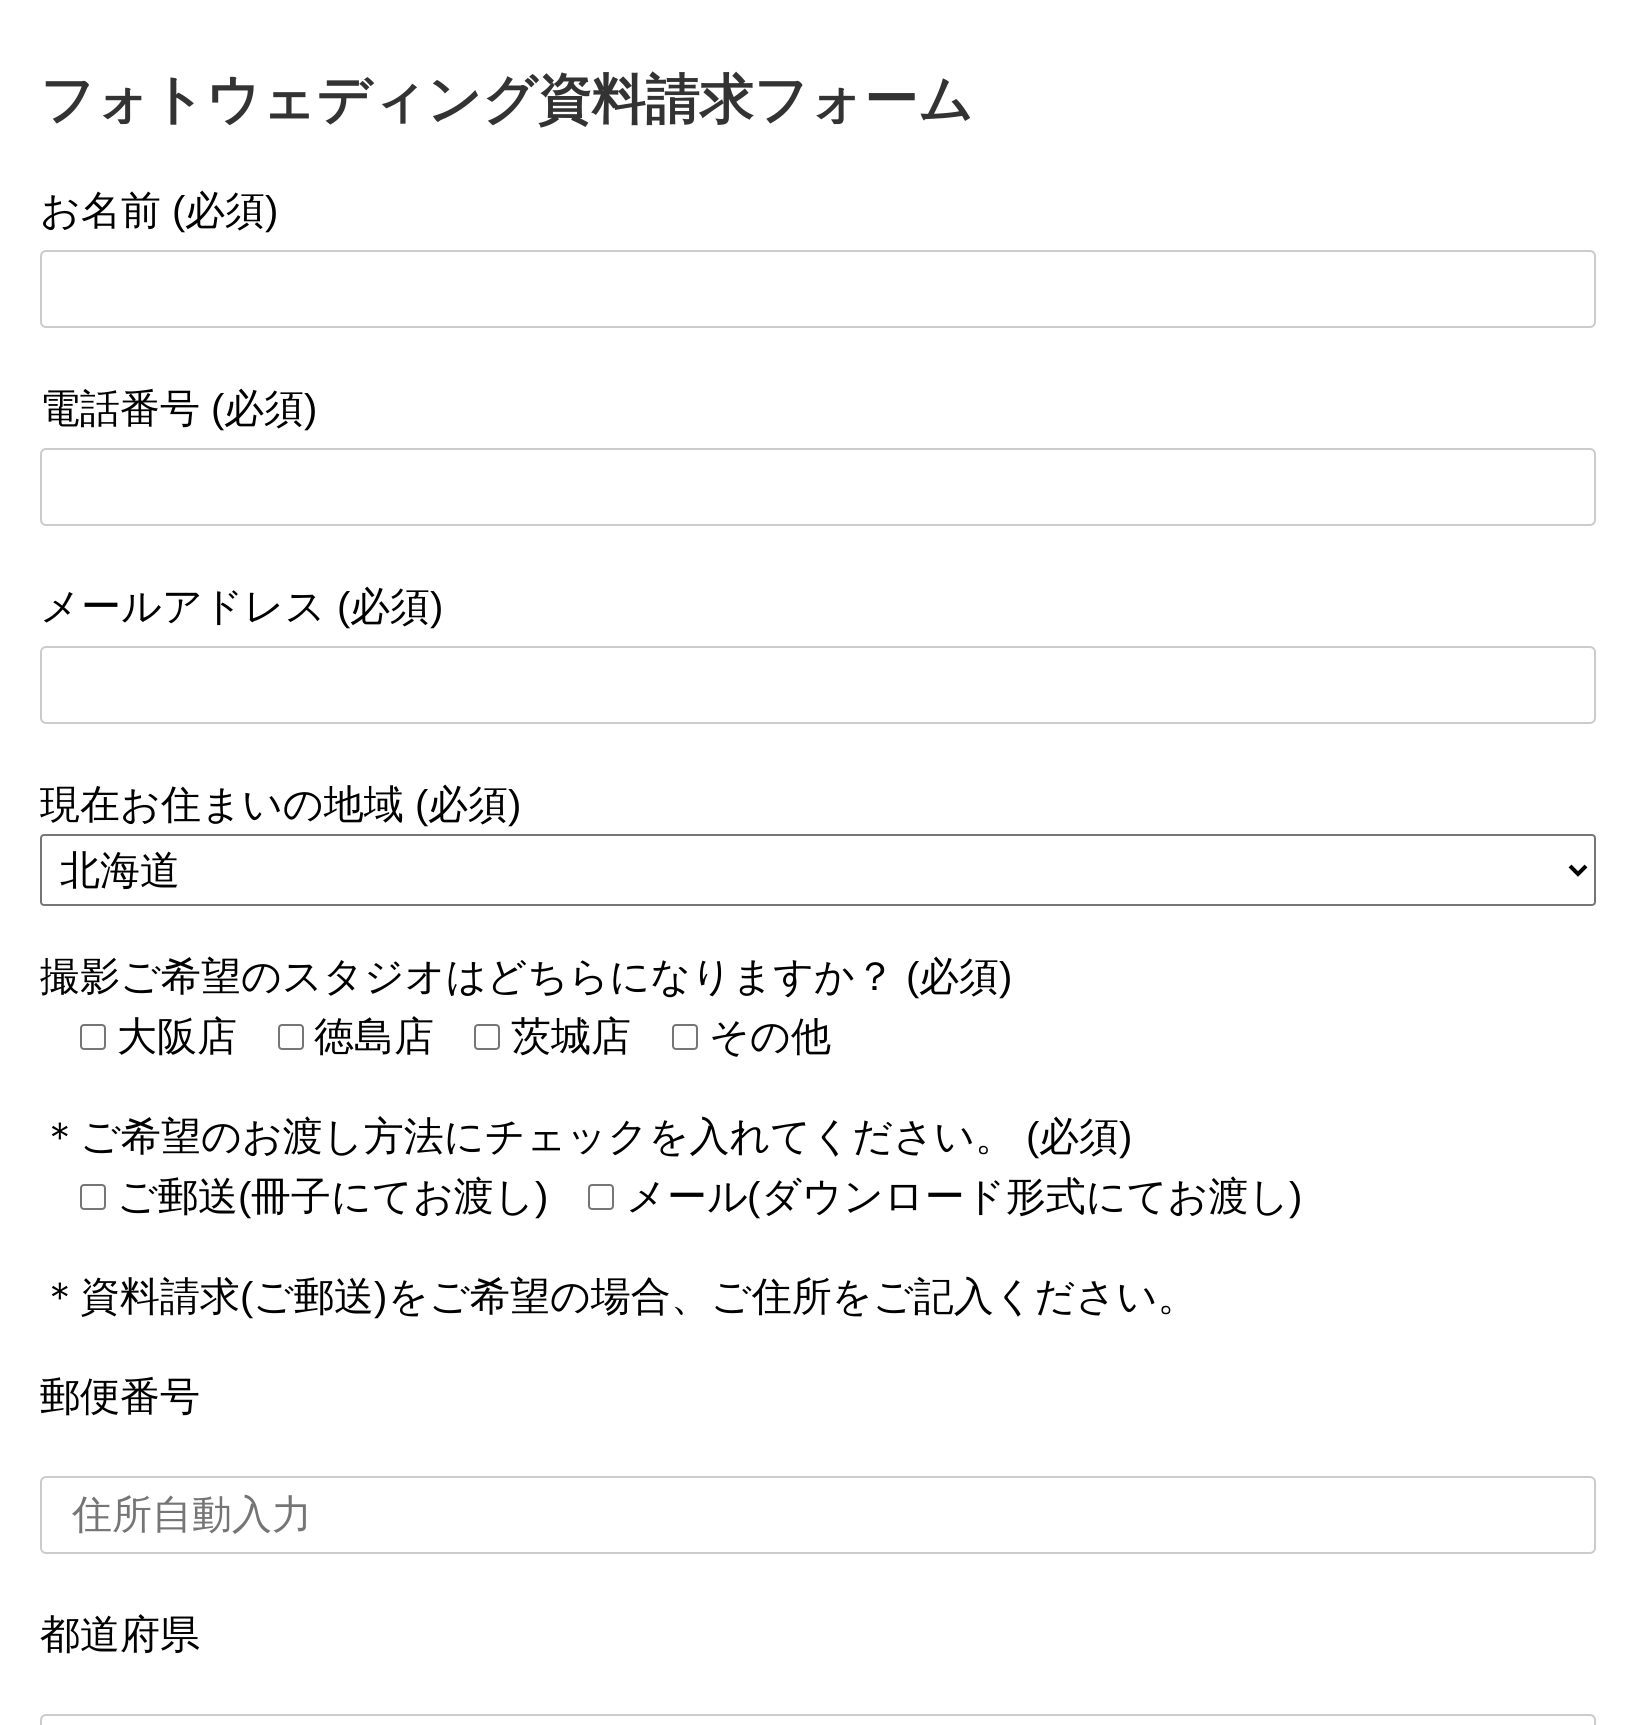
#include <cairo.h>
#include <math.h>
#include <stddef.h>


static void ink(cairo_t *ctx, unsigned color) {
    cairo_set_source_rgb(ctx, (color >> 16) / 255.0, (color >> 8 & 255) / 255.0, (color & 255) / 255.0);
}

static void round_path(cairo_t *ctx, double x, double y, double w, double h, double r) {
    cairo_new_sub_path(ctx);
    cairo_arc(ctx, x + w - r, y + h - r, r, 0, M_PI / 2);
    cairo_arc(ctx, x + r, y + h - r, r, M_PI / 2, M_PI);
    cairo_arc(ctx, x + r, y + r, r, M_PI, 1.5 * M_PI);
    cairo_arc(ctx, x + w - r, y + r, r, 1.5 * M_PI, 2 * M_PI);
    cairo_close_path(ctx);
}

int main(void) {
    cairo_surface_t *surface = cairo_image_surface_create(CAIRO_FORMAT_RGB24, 1635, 1725);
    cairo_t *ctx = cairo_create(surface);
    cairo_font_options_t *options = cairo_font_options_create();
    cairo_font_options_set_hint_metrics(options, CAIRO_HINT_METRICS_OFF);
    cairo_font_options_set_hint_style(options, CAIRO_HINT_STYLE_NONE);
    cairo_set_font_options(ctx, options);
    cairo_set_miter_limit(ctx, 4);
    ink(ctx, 0xFFFFFF);
    cairo_paint(ctx);
    cairo_select_font_face(ctx, "WenQuanYi Zen Hei", CAIRO_FONT_SLANT_NORMAL, CAIRO_FONT_WEIGHT_BOLD);
    cairo_set_font_size(ctx, 54);
    ink(ctx, 0x333333);
    cairo_move_to(ctx, 40, 118);
    cairo_show_text(ctx, "フォトウェディング資料請求フォーム");
    cairo_select_font_face(ctx, "WenQuanYi Zen Hei Medium", CAIRO_FONT_SLANT_NORMAL, CAIRO_FONT_WEIGHT_NORMAL);
    cairo_set_font_size(ctx, 40);
    ink(ctx, 0x000000);
    cairo_move_to(ctx, 40, 224);
    cairo_show_text(ctx, "お名前");
    cairo_select_font_face(ctx, "Liberation Sans", CAIRO_FONT_SLANT_NORMAL, CAIRO_FONT_WEIGHT_NORMAL);
    cairo_move_to(ctx, 172, 224);
    cairo_show_text(ctx, "(");
    cairo_select_font_face(ctx, "WenQuanYi Zen Hei Medium", CAIRO_FONT_SLANT_NORMAL, CAIRO_FONT_WEIGHT_NORMAL);
    cairo_move_to(ctx, 185, 224);
    cairo_show_text(ctx, "必須");
    cairo_select_font_face(ctx, "Liberation Sans", CAIRO_FONT_SLANT_NORMAL, CAIRO_FONT_WEIGHT_NORMAL);
    cairo_move_to(ctx, 265, 224);
    cairo_show_text(ctx, ")");
    round_path(ctx, 41, 251, 1554, 76, 5);
    ink(ctx, 0xCCCCCC);
    cairo_stroke(ctx);
    cairo_select_font_face(ctx, "WenQuanYi Zen Hei Medium", CAIRO_FONT_SLANT_NORMAL, CAIRO_FONT_WEIGHT_NORMAL);
    ink(ctx, 0x000000);
    cairo_move_to(ctx, 40, 422);
    cairo_show_text(ctx, "電話番号");
    cairo_select_font_face(ctx, "Liberation Sans", CAIRO_FONT_SLANT_NORMAL, CAIRO_FONT_WEIGHT_NORMAL);
    cairo_move_to(ctx, 211, 422);
    cairo_show_text(ctx, "(");
    cairo_select_font_face(ctx, "WenQuanYi Zen Hei Medium", CAIRO_FONT_SLANT_NORMAL, CAIRO_FONT_WEIGHT_NORMAL);
    cairo_move_to(ctx, 224, 422);
    cairo_show_text(ctx, "必須");
    cairo_select_font_face(ctx, "Liberation Sans", CAIRO_FONT_SLANT_NORMAL, CAIRO_FONT_WEIGHT_NORMAL);
    cairo_move_to(ctx, 304, 422);
    cairo_show_text(ctx, ")");
    round_path(ctx, 41, 449, 1554, 76, 5);
    ink(ctx, 0xCCCCCC);
    cairo_stroke(ctx);
    cairo_select_font_face(ctx, "WenQuanYi Zen Hei Medium", CAIRO_FONT_SLANT_NORMAL, CAIRO_FONT_WEIGHT_NORMAL);
    ink(ctx, 0x000000);
    cairo_move_to(ctx, 40, 620);
    cairo_show_text(ctx, "メールアドレス");
    cairo_select_font_face(ctx, "Liberation Sans", CAIRO_FONT_SLANT_NORMAL, CAIRO_FONT_WEIGHT_NORMAL);
    cairo_move_to(ctx, 337, 620);
    cairo_show_text(ctx, "(");
    cairo_select_font_face(ctx, "WenQuanYi Zen Hei Medium", CAIRO_FONT_SLANT_NORMAL, CAIRO_FONT_WEIGHT_NORMAL);
    cairo_move_to(ctx, 350, 620);
    cairo_show_text(ctx, "必須");
    cairo_select_font_face(ctx, "Liberation Sans", CAIRO_FONT_SLANT_NORMAL, CAIRO_FONT_WEIGHT_NORMAL);
    cairo_move_to(ctx, 430, 620);
    cairo_show_text(ctx, ")");
    round_path(ctx, 41, 647, 1554, 76, 5);
    ink(ctx, 0xCCCCCC);
    cairo_stroke(ctx);
    cairo_select_font_face(ctx, "WenQuanYi Zen Hei Medium", CAIRO_FONT_SLANT_NORMAL, CAIRO_FONT_WEIGHT_NORMAL);
    ink(ctx, 0x000000);
    cairo_move_to(ctx, 40, 818);
    cairo_show_text(ctx, "現在お住まいの地域");
    cairo_select_font_face(ctx, "Liberation Sans", CAIRO_FONT_SLANT_NORMAL, CAIRO_FONT_WEIGHT_NORMAL);
    cairo_move_to(ctx, 415, 818);
    cairo_show_text(ctx, "(");
    cairo_select_font_face(ctx, "WenQuanYi Zen Hei Medium", CAIRO_FONT_SLANT_NORMAL, CAIRO_FONT_WEIGHT_NORMAL);
    cairo_move_to(ctx, 428, 818);
    cairo_show_text(ctx, "必須");
    cairo_select_font_face(ctx, "Liberation Sans", CAIRO_FONT_SLANT_NORMAL, CAIRO_FONT_WEIGHT_NORMAL);
    cairo_move_to(ctx, 508, 818);
    cairo_show_text(ctx, ")");
    round_path(ctx, 41, 835, 1554, 70, 3);
    ink(ctx, 0x767676);
    cairo_stroke(ctx);
    cairo_new_path(ctx);
    cairo_move_to(ctx, 1570, 866);
    cairo_line_to(ctx, 1578, 874);
    cairo_line_to(ctx, 1586, 866);
    ink(ctx, 0x000000);
    cairo_set_line_width(ctx, 4);
    cairo_stroke(ctx);
    cairo_select_font_face(ctx, "WenQuanYi Zen Hei Medium", CAIRO_FONT_SLANT_NORMAL, CAIRO_FONT_WEIGHT_NORMAL);
    cairo_move_to(ctx, 60, 884);
    cairo_show_text(ctx, "北海道");
    cairo_move_to(ctx, 40, 990);
    cairo_show_text(ctx, "撮影ご希望のスタジオはどちらになりますか？");
    cairo_select_font_face(ctx, "Liberation Sans", CAIRO_FONT_SLANT_NORMAL, CAIRO_FONT_WEIGHT_NORMAL);
    cairo_move_to(ctx, 906, 990);
    cairo_show_text(ctx, "(");
    cairo_select_font_face(ctx, "WenQuanYi Zen Hei Medium", CAIRO_FONT_SLANT_NORMAL, CAIRO_FONT_WEIGHT_NORMAL);
    cairo_move_to(ctx, 919, 990);
    cairo_show_text(ctx, "必須");
    cairo_select_font_face(ctx, "Liberation Sans", CAIRO_FONT_SLANT_NORMAL, CAIRO_FONT_WEIGHT_NORMAL);
    cairo_move_to(ctx, 999, 990);
    cairo_show_text(ctx, ")");
    round_path(ctx, 81, 1025, 24, 24, 3);
    ink(ctx, 0x767676);
    cairo_set_line_width(ctx, 2);
    cairo_stroke(ctx);
    cairo_select_font_face(ctx, "WenQuanYi Zen Hei Medium", CAIRO_FONT_SLANT_NORMAL, CAIRO_FONT_WEIGHT_NORMAL);
    ink(ctx, 0x000000);
    cairo_move_to(ctx, 117, 1050);
    cairo_show_text(ctx, "大阪店");
    round_path(ctx, 279, 1025, 24, 24, 3);
    ink(ctx, 0x767676);
    cairo_stroke(ctx);
    ink(ctx, 0x000000);
    cairo_move_to(ctx, 314, 1050);
    cairo_show_text(ctx, "徳島店");
    round_path(ctx, 475, 1025, 24, 24, 3);
    ink(ctx, 0x767676);
    cairo_stroke(ctx);
    ink(ctx, 0x000000);
    cairo_move_to(ctx, 511, 1050);
    cairo_show_text(ctx, "茨城店");
    round_path(ctx, 673, 1025, 24, 24, 3);
    ink(ctx, 0x767676);
    cairo_stroke(ctx);
    ink(ctx, 0x000000);
    cairo_move_to(ctx, 709, 1050);
    cairo_show_text(ctx, "その他");
    cairo_move_to(ctx, 40, 1150);
    cairo_show_text(ctx, "＊ご希望のお渡し方法にチェックを入れてください。");
    cairo_select_font_face(ctx, "Liberation Sans", CAIRO_FONT_SLANT_NORMAL, CAIRO_FONT_WEIGHT_NORMAL);
    cairo_move_to(ctx, 1026, 1150);
    cairo_show_text(ctx, "(");
    cairo_select_font_face(ctx, "WenQuanYi Zen Hei Medium", CAIRO_FONT_SLANT_NORMAL, CAIRO_FONT_WEIGHT_NORMAL);
    cairo_move_to(ctx, 1039, 1150);
    cairo_show_text(ctx, "必須");
    cairo_select_font_face(ctx, "Liberation Sans", CAIRO_FONT_SLANT_NORMAL, CAIRO_FONT_WEIGHT_NORMAL);
    cairo_move_to(ctx, 1119, 1150);
    cairo_show_text(ctx, ")");
    round_path(ctx, 81, 1185, 24, 24, 3);
    ink(ctx, 0x767676);
    cairo_stroke(ctx);
    cairo_select_font_face(ctx, "WenQuanYi Zen Hei Medium", CAIRO_FONT_SLANT_NORMAL, CAIRO_FONT_WEIGHT_NORMAL);
    ink(ctx, 0x000000);
    cairo_move_to(ctx, 117, 1210);
    cairo_show_text(ctx, "ご郵送");
    cairo_select_font_face(ctx, "Liberation Sans", CAIRO_FONT_SLANT_NORMAL, CAIRO_FONT_WEIGHT_NORMAL);
    cairo_move_to(ctx, 238, 1210);
    cairo_show_text(ctx, "(");
    cairo_select_font_face(ctx, "WenQuanYi Zen Hei Medium", CAIRO_FONT_SLANT_NORMAL, CAIRO_FONT_WEIGHT_NORMAL);
    cairo_move_to(ctx, 251, 1210);
    cairo_show_text(ctx, "冊子にてお渡し");
    cairo_select_font_face(ctx, "Liberation Sans", CAIRO_FONT_SLANT_NORMAL, CAIRO_FONT_WEIGHT_NORMAL);
    cairo_move_to(ctx, 535, 1210);
    cairo_show_text(ctx, ")");
    round_path(ctx, 589, 1185, 24, 24, 3);
    ink(ctx, 0x767676);
    cairo_stroke(ctx);
    cairo_select_font_face(ctx, "WenQuanYi Zen Hei Medium", CAIRO_FONT_SLANT_NORMAL, CAIRO_FONT_WEIGHT_NORMAL);
    ink(ctx, 0x000000);
    cairo_move_to(ctx, 626, 1210);
    cairo_show_text(ctx, "メール");
    cairo_select_font_face(ctx, "Liberation Sans", CAIRO_FONT_SLANT_NORMAL, CAIRO_FONT_WEIGHT_NORMAL);
    cairo_move_to(ctx, 747, 1210);
    cairo_show_text(ctx, "(");
    cairo_select_font_face(ctx, "WenQuanYi Zen Hei Medium", CAIRO_FONT_SLANT_NORMAL, CAIRO_FONT_WEIGHT_NORMAL);
    cairo_move_to(ctx, 761, 1210);
    cairo_show_text(ctx, "ダウンロード形式にてお渡し");
    cairo_select_font_face(ctx, "Liberation Sans", CAIRO_FONT_SLANT_NORMAL, CAIRO_FONT_WEIGHT_NORMAL);
    cairo_move_to(ctx, 1289, 1210);
    cairo_show_text(ctx, ")");
    cairo_select_font_face(ctx, "WenQuanYi Zen Hei Medium", CAIRO_FONT_SLANT_NORMAL, CAIRO_FONT_WEIGHT_NORMAL);
    cairo_move_to(ctx, 40, 1310);
    cairo_show_text(ctx, "＊資料請求");
    cairo_select_font_face(ctx, "Liberation Sans", CAIRO_FONT_SLANT_NORMAL, CAIRO_FONT_WEIGHT_NORMAL);
    cairo_move_to(ctx, 240, 1310);
    cairo_show_text(ctx, "(");
    cairo_select_font_face(ctx, "WenQuanYi Zen Hei Medium", CAIRO_FONT_SLANT_NORMAL, CAIRO_FONT_WEIGHT_NORMAL);
    cairo_move_to(ctx, 253, 1310);
    cairo_show_text(ctx, "ご郵送");
    cairo_select_font_face(ctx, "Liberation Sans", CAIRO_FONT_SLANT_NORMAL, CAIRO_FONT_WEIGHT_NORMAL);
    cairo_move_to(ctx, 374, 1310);
    cairo_show_text(ctx, ")");
    cairo_select_font_face(ctx, "WenQuanYi Zen Hei Medium", CAIRO_FONT_SLANT_NORMAL, CAIRO_FONT_WEIGHT_NORMAL);
    cairo_move_to(ctx, 388, 1310);
    cairo_show_text(ctx, "をご希望の場合、ご住所をご記入ください。");
    cairo_move_to(ctx, 40, 1410);
    cairo_show_text(ctx, "郵便番号");
    round_path(ctx, 41, 1477, 1554, 76, 5);
    ink(ctx, 0xCCCCCC);
    cairo_stroke(ctx);
    ink(ctx, 0x757575);
    cairo_move_to(ctx, 72, 1528);
    cairo_show_text(ctx, "住所自動入力");
    ink(ctx, 0x000000);
    cairo_move_to(ctx, 40, 1648);
    cairo_show_text(ctx, "都道府県");
    round_path(ctx, 41, 1715, 1554, 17, 5);
    ink(ctx, 0xCCCCCC);
    cairo_stroke(ctx);
    cairo_surface_write_to_png(surface, "image.png");
    cairo_font_options_destroy(options);
    cairo_destroy(ctx);
    cairo_surface_destroy(surface);
    return 0;
}
